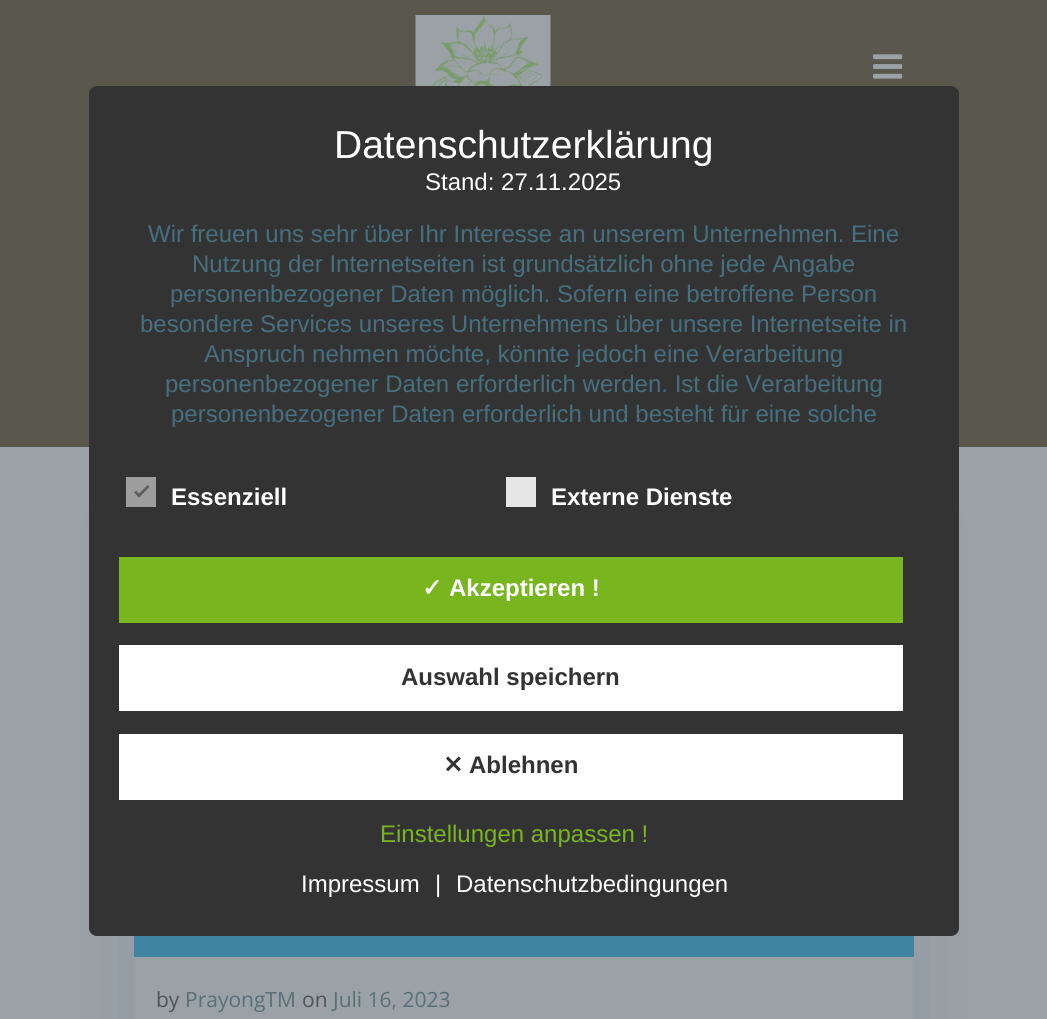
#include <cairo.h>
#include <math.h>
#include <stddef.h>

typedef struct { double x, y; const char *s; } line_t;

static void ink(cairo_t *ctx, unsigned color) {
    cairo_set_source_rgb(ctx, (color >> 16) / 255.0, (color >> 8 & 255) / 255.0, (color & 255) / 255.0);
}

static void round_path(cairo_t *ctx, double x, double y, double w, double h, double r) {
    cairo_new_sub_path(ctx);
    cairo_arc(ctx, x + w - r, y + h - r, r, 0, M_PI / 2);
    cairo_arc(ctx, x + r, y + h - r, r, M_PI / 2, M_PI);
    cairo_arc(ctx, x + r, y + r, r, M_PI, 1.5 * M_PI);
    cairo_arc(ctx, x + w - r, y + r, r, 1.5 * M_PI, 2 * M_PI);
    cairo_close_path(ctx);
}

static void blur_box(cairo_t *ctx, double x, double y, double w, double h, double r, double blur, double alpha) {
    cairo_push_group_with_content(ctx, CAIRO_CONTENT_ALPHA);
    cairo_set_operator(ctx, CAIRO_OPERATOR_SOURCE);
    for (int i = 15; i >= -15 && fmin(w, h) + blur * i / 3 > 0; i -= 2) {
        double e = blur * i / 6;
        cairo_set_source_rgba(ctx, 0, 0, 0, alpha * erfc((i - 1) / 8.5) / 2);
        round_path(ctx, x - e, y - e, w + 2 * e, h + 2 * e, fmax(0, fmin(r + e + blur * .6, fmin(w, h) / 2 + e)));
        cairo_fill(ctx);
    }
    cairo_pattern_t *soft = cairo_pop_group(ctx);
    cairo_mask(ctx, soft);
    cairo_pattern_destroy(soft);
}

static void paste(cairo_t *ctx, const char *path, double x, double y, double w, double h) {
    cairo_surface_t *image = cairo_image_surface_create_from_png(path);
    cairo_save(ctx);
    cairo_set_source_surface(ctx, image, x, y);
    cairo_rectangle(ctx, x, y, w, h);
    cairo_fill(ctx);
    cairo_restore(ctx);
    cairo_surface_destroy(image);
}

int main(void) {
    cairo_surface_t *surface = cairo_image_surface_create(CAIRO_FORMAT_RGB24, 1047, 1019);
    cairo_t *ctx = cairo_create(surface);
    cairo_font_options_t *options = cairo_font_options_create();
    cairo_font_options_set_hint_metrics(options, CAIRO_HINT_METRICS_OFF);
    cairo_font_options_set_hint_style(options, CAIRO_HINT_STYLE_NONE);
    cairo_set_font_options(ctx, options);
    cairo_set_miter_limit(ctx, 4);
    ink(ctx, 0x9BA2A7);
    cairo_paint(ctx);
    ink(ctx, 0x5A574C);
    cairo_rectangle(ctx, 0, 0, 1047, 447);
    cairo_fill(ctx);
    ink(ctx, 0x3F5966);
    blur_box(ctx, 134, 522, 780, 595, 8, 30, 0.15);
    ink(ctx, 0x333333);
    round_path(ctx, 89, 86, 870, 850, 8);
    cairo_fill(ctx);
    cairo_select_font_face(ctx, "Liberation Sans", CAIRO_FONT_SLANT_NORMAL, CAIRO_FONT_WEIGHT_NORMAL);
    cairo_set_font_size(ctx, 39);
    ink(ctx, 0xFFFFFF);
    cairo_move_to(ctx, 334, 158);
    cairo_show_text(ctx, "Datenschutzerklärung");
    cairo_set_font_size(ctx, 24);
    cairo_move_to(ctx, 425, 190);
    cairo_show_text(ctx, "Stand: 27.11.2025");
    ink(ctx, 0x46707F);
    {
        static const line_t items[] = {
            {148, 242, "Wir freuen uns sehr über Ihr Interesse an unserem Unternehmen. Eine"},
            {192, 272, "Nutzung der Internetseiten ist grundsätzlich ohne jede Angabe"},
            {170, 302, "personenbezogener Daten möglich. Sofern eine betroffene Person"},
            {140, 332, "besondere Services unseres Unternehmens über unsere Internetseite in"},
            {204, 362, "Anspruch nehmen möchte, könnte jedoch eine Verarbeitung"},
            {165, 392, "personenbezogener Daten erforderlich werden. Ist die Verarbeitung"},
            {171, 422, "personenbezogener Daten erforderlich und besteht für eine solche"},
        };
        for (size_t i = 0; i < sizeof items / sizeof *items; i++) {
            cairo_move_to(ctx, items[i].x, items[i].y);
            cairo_show_text(ctx, items[i].s);
        }
    }
    ink(ctx, 0x9E9E9E);
    cairo_rectangle(ctx, 126, 477, 30, 30);
    cairo_fill(ctx);
    ink(ctx, 0x5E5E5E);
    cairo_new_path(ctx);
    cairo_move_to(ctx, 147.5, 485);
    cairo_line_to(ctx, 149.5, 487);
    cairo_line_to(ctx, 139, 497.5);
    cairo_line_to(ctx, 137, 495.5);
    cairo_close_path(ctx);
    cairo_fill(ctx);
    cairo_new_path(ctx);
    cairo_move_to(ctx, 136, 490.5);
    cairo_line_to(ctx, 141, 495.5);
    cairo_line_to(ctx, 139, 497.5);
    cairo_line_to(ctx, 134, 492.5);
    cairo_close_path(ctx);
    cairo_fill(ctx);
    cairo_select_font_face(ctx, "Liberation Sans", CAIRO_FONT_SLANT_NORMAL, CAIRO_FONT_WEIGHT_BOLD);
    ink(ctx, 0xFFFFFF);
    cairo_move_to(ctx, 171, 505);
    cairo_show_text(ctx, "Essenziell");
    ink(ctx, 0xE6E6E6);
    cairo_rectangle(ctx, 506, 477, 30, 30);
    cairo_fill(ctx);
    ink(ctx, 0xFFFFFF);
    cairo_move_to(ctx, 551, 505);
    cairo_show_text(ctx, "Externe Dienste");
    ink(ctx, 0x79B51F);
    cairo_rectangle(ctx, 119, 557, 784, 66);
    cairo_fill(ctx);
    cairo_select_font_face(ctx, "DejaVu Sans", CAIRO_FONT_SLANT_NORMAL, CAIRO_FONT_WEIGHT_BOLD);
    ink(ctx, 0xFFFFFF);
    cairo_move_to(ctx, 422, 596);
    cairo_show_text(ctx, "✓");
    cairo_select_font_face(ctx, "Liberation Sans", CAIRO_FONT_SLANT_NORMAL, CAIRO_FONT_WEIGHT_BOLD);
    cairo_move_to(ctx, 449, 596);
    cairo_show_text(ctx, "Akzeptieren !");
    cairo_rectangle(ctx, 119, 645, 784, 66);
    cairo_fill(ctx);
    ink(ctx, 0x333333);
    cairo_move_to(ctx, 401, 685);
    cairo_show_text(ctx, "Auswahl speichern");
    ink(ctx, 0xFFFFFF);
    cairo_rectangle(ctx, 119, 734, 784, 66);
    cairo_fill(ctx);
    cairo_select_font_face(ctx, "DejaVu Sans", CAIRO_FONT_SLANT_NORMAL, CAIRO_FONT_WEIGHT_BOLD);
    ink(ctx, 0x333333);
    cairo_move_to(ctx, 443, 773);
    cairo_show_text(ctx, "✕");
    cairo_select_font_face(ctx, "Liberation Sans", CAIRO_FONT_SLANT_NORMAL, CAIRO_FONT_WEIGHT_BOLD);
    cairo_move_to(ctx, 469, 773);
    cairo_show_text(ctx, "Ablehnen");
    cairo_select_font_face(ctx, "Liberation Sans", CAIRO_FONT_SLANT_NORMAL, CAIRO_FONT_WEIGHT_NORMAL);
    ink(ctx, 0x79B51F);
    cairo_move_to(ctx, 380, 842);
    cairo_show_text(ctx, "Einstellungen anpassen !");
    ink(ctx, 0xFFFFFF);
    {
        static const line_t items[] = {
            {301, 892, "Impressum"},
            {435, 892, "|"},
            {456, 892, "Datenschutzbedingungen"},
        };
        for (size_t i = 0; i < sizeof items / sizeof *items; i++) {
            cairo_move_to(ctx, items[i].x, items[i].y);
            cairo_show_text(ctx, items[i].s);
        }
    }
    paste(ctx, "media/1.png", 415, 15, 136, 71);
    paste(ctx, "media/2.png", 873, 54, 30, 25);
    ink(ctx, 0x9BA2A7);
    cairo_rectangle(ctx, 134, 957, 780, 62);
    cairo_fill(ctx);
    ink(ctx, 0x4083A3);
    cairo_rectangle(ctx, 134, 936, 780, 21);
    cairo_fill(ctx);
    cairo_select_font_face(ctx, "Open Sans", CAIRO_FONT_SLANT_NORMAL, CAIRO_FONT_WEIGHT_NORMAL);
    cairo_set_font_size(ctx, 21);
    ink(ctx, 0x4C555A);
    cairo_move_to(ctx, 156, 1007);
    cairo_show_text(ctx, "by");
    ink(ctx, 0x586F79);
    cairo_move_to(ctx, 185, 1007);
    cairo_show_text(ctx, "PrayongTM");
    ink(ctx, 0x4C555A);
    cairo_move_to(ctx, 302, 1007);
    cairo_show_text(ctx, "on");
    ink(ctx, 0x586F79);
    cairo_move_to(ctx, 333, 1007);
    cairo_show_text(ctx, "Juli 16, 2023");
    cairo_surface_write_to_png(surface, "image.png");
    cairo_font_options_destroy(options);
    cairo_destroy(ctx);
    cairo_surface_destroy(surface);
    return 0;
}
